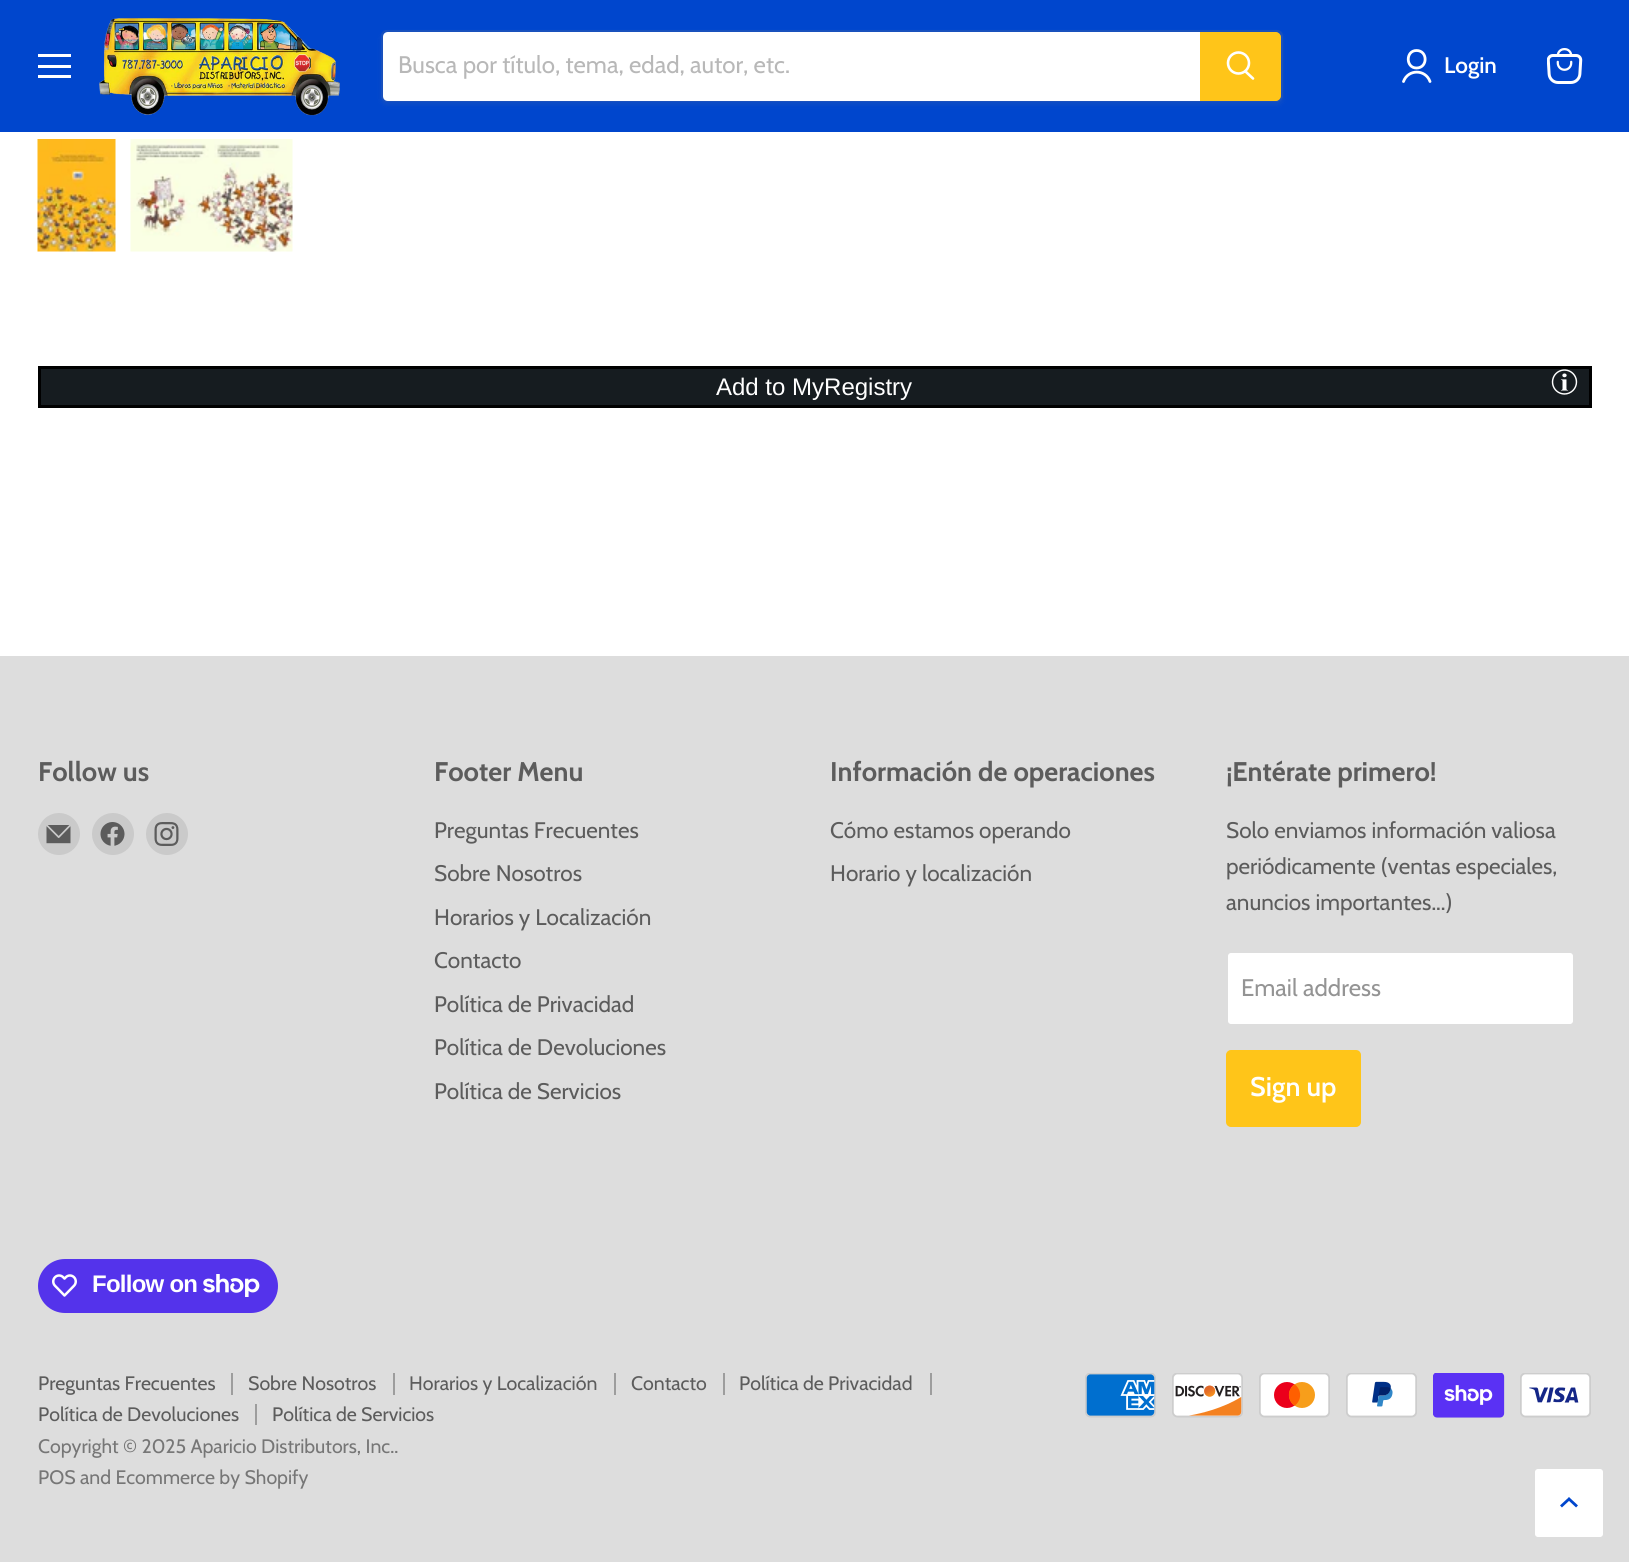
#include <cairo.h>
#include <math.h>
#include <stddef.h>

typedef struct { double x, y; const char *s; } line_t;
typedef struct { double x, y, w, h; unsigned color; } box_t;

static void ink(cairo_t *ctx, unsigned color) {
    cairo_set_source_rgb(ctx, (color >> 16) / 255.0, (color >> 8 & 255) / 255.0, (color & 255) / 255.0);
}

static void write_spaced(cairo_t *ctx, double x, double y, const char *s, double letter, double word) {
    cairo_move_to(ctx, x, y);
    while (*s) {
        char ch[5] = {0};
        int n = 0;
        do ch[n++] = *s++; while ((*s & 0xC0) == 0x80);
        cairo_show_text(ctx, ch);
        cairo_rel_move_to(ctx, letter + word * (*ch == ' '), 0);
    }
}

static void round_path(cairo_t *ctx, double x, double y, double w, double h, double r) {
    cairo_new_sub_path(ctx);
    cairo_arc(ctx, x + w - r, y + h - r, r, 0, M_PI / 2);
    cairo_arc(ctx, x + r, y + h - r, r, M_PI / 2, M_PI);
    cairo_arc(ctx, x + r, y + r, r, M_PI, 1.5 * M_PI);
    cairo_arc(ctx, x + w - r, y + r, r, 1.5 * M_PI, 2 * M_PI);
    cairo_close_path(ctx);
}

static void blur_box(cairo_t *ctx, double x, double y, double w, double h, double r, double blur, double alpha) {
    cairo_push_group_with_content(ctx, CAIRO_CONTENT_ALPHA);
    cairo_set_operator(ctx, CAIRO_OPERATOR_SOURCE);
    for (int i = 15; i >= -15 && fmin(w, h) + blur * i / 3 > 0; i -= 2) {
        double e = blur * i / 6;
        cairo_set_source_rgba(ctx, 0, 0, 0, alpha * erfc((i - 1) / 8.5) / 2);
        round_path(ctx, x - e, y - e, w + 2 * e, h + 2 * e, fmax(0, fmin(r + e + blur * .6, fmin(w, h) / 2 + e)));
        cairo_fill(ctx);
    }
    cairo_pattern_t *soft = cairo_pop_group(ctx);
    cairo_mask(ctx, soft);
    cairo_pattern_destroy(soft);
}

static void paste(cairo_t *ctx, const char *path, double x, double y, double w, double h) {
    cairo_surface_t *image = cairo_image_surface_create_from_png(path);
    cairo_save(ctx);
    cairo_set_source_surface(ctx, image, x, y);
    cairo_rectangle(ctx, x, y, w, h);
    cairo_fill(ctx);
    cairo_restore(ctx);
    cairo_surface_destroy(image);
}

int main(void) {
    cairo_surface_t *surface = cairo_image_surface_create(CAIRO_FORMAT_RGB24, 1629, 1562);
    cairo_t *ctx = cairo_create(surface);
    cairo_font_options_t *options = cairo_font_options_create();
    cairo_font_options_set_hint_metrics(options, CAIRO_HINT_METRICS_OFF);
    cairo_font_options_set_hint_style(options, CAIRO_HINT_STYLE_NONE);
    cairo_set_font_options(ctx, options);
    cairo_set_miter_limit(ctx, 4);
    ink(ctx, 0xFFFFFF);
    cairo_paint(ctx);
    {
        static const box_t items[] = {
            {0, 0, 1629, 132, 0x0046CD},
            {38, 54, 33, 3, 0xFFFFFF},
            {38, 65, 33, 3, 0xFFFFFF},
            {38, 75, 33, 3, 0xFFFFFF},
        };
        for (size_t i = 0; i < sizeof items / sizeof *items; i++) {
            ink(ctx, items[i].color);
            cairo_rectangle(ctx, items[i].x, items[i].y, items[i].w, items[i].h);
            cairo_fill(ctx);
        }
    }
    paste(ctx, "media/1.png", 99, 18, 241, 98);
    cairo_save(ctx);
    cairo_set_fill_rule(ctx, CAIRO_FILL_RULE_EVEN_ODD);
    cairo_new_path(ctx);
    cairo_move_to(ctx, 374, 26);
    cairo_line_to(ctx, 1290, 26);
    cairo_line_to(ctx, 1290, 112);
    cairo_line_to(ctx, 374, 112);
    cairo_close_path(ctx);
    cairo_move_to(ctx, 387, 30);
    cairo_line_to(ctx, 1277, 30);
    cairo_curve_to(ctx, 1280.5, 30, 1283, 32.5, 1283, 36);
    cairo_line_to(ctx, 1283, 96);
    cairo_curve_to(ctx, 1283, 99.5, 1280.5, 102, 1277, 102);
    cairo_line_to(ctx, 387, 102);
    cairo_curve_to(ctx, 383.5, 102, 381, 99.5, 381, 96);
    cairo_line_to(ctx, 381, 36);
    cairo_curve_to(ctx, 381, 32.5, 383.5, 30, 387, 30);
    cairo_close_path(ctx);
    cairo_clip(ctx);
    ink(ctx, 0x808080);
    blur_box(ctx, 381, 33, 902, 72, 6, 2, 0.11);
    cairo_restore(ctx);
    round_path(ctx, 382, 31, 900, 70, 5);
    cairo_set_source_rgba(ctx, 0.502, 0.502, 0.502, 0.2);
    cairo_stroke(ctx);
    ink(ctx, 0xFFFFFF);
    cairo_new_path(ctx);
    cairo_move_to(ctx, 388, 32);
    cairo_line_to(ctx, 1200, 32);
    cairo_line_to(ctx, 1200, 101);
    cairo_line_to(ctx, 388, 101);
    cairo_curve_to(ctx, 385, 101, 383, 99, 383, 96);
    cairo_line_to(ctx, 383, 37);
    cairo_curve_to(ctx, 383, 34, 385, 32, 388, 32);
    cairo_close_path(ctx);
    cairo_fill(ctx);
    cairo_select_font_face(ctx, "Cabin", CAIRO_FONT_SLANT_NORMAL, CAIRO_FONT_WEIGHT_NORMAL);
    cairo_set_font_size(ctx, 24);
    ink(ctx, 0xB8B8B8);
    cairo_move_to(ctx, 398, 73);
    cairo_show_text(ctx, "Busca por título, tema, edad, autor, etc.");
    ink(ctx, 0xFFC519);
    cairo_new_path(ctx);
    cairo_move_to(ctx, 1201, 33);
    cairo_line_to(ctx, 1276, 33);
    cairo_curve_to(ctx, 1278, 33, 1280, 35, 1280, 37);
    cairo_line_to(ctx, 1280, 96);
    cairo_curve_to(ctx, 1280, 98, 1278, 100, 1276, 100);
    cairo_line_to(ctx, 1201, 100);
    cairo_close_path(ctx);
    cairo_fill_preserve(ctx);
    cairo_stroke(ctx);
    cairo_new_path(ctx);
    cairo_move_to(ctx, 1253, 78.5);
    cairo_line_to(ctx, 1245.5, 71.5);
    ink(ctx, 0xFFFFFF);
    cairo_set_line_width(ctx, 2.6);
    cairo_set_line_cap(ctx, CAIRO_LINE_CAP_ROUND);
    cairo_stroke(ctx);
    cairo_arc(ctx, 1238.5, 63, 10.5, 0, 2 * M_PI);
    cairo_set_line_cap(ctx, CAIRO_LINE_CAP_BUTT);
    cairo_stroke(ctx);
    cairo_new_path(ctx);
    cairo_move_to(ctx, 1416.5, 68);
    cairo_curve_to(ctx, 1428, 68, 1428, 50.5, 1416.5, 50.5);
    cairo_curve_to(ctx, 1405.5, 50.5, 1405.5, 68, 1416.5, 68);
    cairo_close_path(ctx);
    cairo_move_to(ctx, 1430, 81.5);
    cairo_curve_to(ctx, 1425.5, 69, 1408, 69, 1403.5, 81.5);
    cairo_set_line_width(ctx, 2.8);
    cairo_set_line_cap(ctx, CAIRO_LINE_CAP_ROUND);
    cairo_set_line_join(ctx, CAIRO_LINE_JOIN_ROUND);
    cairo_stroke(ctx);
    cairo_select_font_face(ctx, "Cabin SemiBold", CAIRO_FONT_SLANT_NORMAL, CAIRO_FONT_WEIGHT_NORMAL);
    cairo_set_font_size(ctx, 22.5);
    cairo_move_to(ctx, 1444, 73);
    cairo_show_text(ctx, "Login");
    paste(ctx, "media/2.png", 1547, 48, 36, 36);
    paste(ctx, "media/3.png", 37, 139, 79, 113);
    paste(ctx, "media/4.png", 130, 139, 163, 113);
    ink(ctx, 0x161C20);
    cairo_rectangle(ctx, 39.5, 367.5, 1551, 39);
    cairo_fill_preserve(ctx);
    ink(ctx, 0x000000);
    cairo_set_line_width(ctx, 3);
    cairo_set_line_cap(ctx, CAIRO_LINE_CAP_BUTT);
    cairo_set_line_join(ctx, CAIRO_LINE_JOIN_MITER);
    cairo_stroke(ctx);
    cairo_select_font_face(ctx, "Liberation Sans", CAIRO_FONT_SLANT_NORMAL, CAIRO_FONT_WEIGHT_NORMAL);
    cairo_set_font_size(ctx, 24);
    ink(ctx, 0xFFFFFF);
    cairo_move_to(ctx, 716, 395);
    cairo_show_text(ctx, "Add to MyRegistry");
    paste(ctx, "media/5.png", 1551, 369, 27, 26);
    ink(ctx, 0xDDDDDD);
    cairo_rectangle(ctx, 0, 656, 1629, 906);
    cairo_fill(ctx);
    cairo_select_font_face(ctx, "Cabin", CAIRO_FONT_SLANT_NORMAL, CAIRO_FONT_WEIGHT_BOLD);
    cairo_set_font_size(ctx, 27);
    ink(ctx, 0x5C5C5C);
    cairo_move_to(ctx, 38, 781);
    cairo_show_text(ctx, "Follow us");
    ink(ctx, 0xCACACA);
    cairo_new_path(ctx);
    cairo_arc(ctx, 59, 834, 21, 0, 2 * M_PI);
    cairo_fill(ctx);
    paste(ctx, "media/6.png", 46, 825, 25, 19);
    cairo_arc(ctx, 113, 834, 21, 0, 2 * M_PI);
    cairo_fill(ctx);
    paste(ctx, "media/7.png", 100, 822, 25, 24);
    cairo_arc(ctx, 167, 834, 21, 0, 2 * M_PI);
    cairo_fill(ctx);
    paste(ctx, "media/8.png", 154, 822, 25, 24);
    ink(ctx, 0x5C5C5C);
    cairo_move_to(ctx, 434, 781);
    cairo_show_text(ctx, "Footer Menu");
    cairo_select_font_face(ctx, "Cabin", CAIRO_FONT_SLANT_NORMAL, CAIRO_FONT_WEIGHT_NORMAL);
    cairo_set_font_size(ctx, 22.5);
    {
        static const line_t items[] = {
            {434, 838, "Preguntas Frecuentes"},
            {434, 881, "Sobre Nosotros"},
            {434, 925, "Horarios y Localización"},
            {434, 968, "Contacto"},
            {434, 1012, "Política de Privacidad"},
            {434, 1055, "Política de Devoluciones"},
            {434, 1099, "Política de Servicios"},
        };
        for (size_t i = 0; i < sizeof items / sizeof *items; i++) {
            cairo_move_to(ctx, items[i].x, items[i].y);
            cairo_show_text(ctx, items[i].s);
        }
    }
    cairo_select_font_face(ctx, "Cabin", CAIRO_FONT_SLANT_NORMAL, CAIRO_FONT_WEIGHT_BOLD);
    cairo_set_font_size(ctx, 27);
    cairo_move_to(ctx, 830, 781);
    cairo_show_text(ctx, "Información de operaciones");
    cairo_select_font_face(ctx, "Cabin", CAIRO_FONT_SLANT_NORMAL, CAIRO_FONT_WEIGHT_NORMAL);
    cairo_set_font_size(ctx, 22.5);
    cairo_move_to(ctx, 830, 838);
    cairo_show_text(ctx, "Cómo estamos operando");
    cairo_move_to(ctx, 830, 881);
    cairo_show_text(ctx, "Horario y localización");
    cairo_select_font_face(ctx, "Cabin", CAIRO_FONT_SLANT_NORMAL, CAIRO_FONT_WEIGHT_BOLD);
    cairo_set_font_size(ctx, 27);
    cairo_move_to(ctx, 1226, 781);
    cairo_show_text(ctx, "¡Entérate primero!");
    cairo_select_font_face(ctx, "Cabin", CAIRO_FONT_SLANT_NORMAL, CAIRO_FONT_WEIGHT_NORMAL);
    cairo_set_font_size(ctx, 22.5);
    {
        static const line_t items[] = {
            {1226, 838, "Solo enviamos información valiosa"},
            {1226, 874, "periódicamente (ventas especiales,"},
            {1226, 910, "anuncios importantes...)"},
        };
        for (size_t i = 0; i < sizeof items / sizeof *items; i++) {
            cairo_move_to(ctx, items[i].x, items[i].y);
            cairo_show_text(ctx, items[i].s);
        }
    }
    ink(ctx, 0xFFFFFF);
    round_path(ctx, 1227, 952, 347, 73, 4);
    cairo_fill_preserve(ctx);
    ink(ctx, 0xDDDDDD);
    cairo_set_line_width(ctx, 2);
    cairo_stroke(ctx);
    cairo_set_font_size(ctx, 24);
    ink(ctx, 0x949494);
    cairo_move_to(ctx, 1241, 996);
    cairo_show_text(ctx, "Email address");
    ink(ctx, 0xFFC519);
    round_path(ctx, 1227, 1051, 133, 75, 4);
    cairo_fill_preserve(ctx);
    cairo_stroke(ctx);
    cairo_select_font_face(ctx, "Cabin SemiBold", CAIRO_FONT_SLANT_NORMAL, CAIRO_FONT_WEIGHT_NORMAL);
    cairo_set_font_size(ctx, 27);
    ink(ctx, 0xFFFFFF);
    cairo_move_to(ctx, 1250, 1096);
    cairo_show_text(ctx, "Sign up");
    ink(ctx, 0x5433EB);
    round_path(ctx, 38, 1259, 240, 54, 27);
    cairo_fill(ctx);
    paste(ctx, "media/9.png", 52, 1274, 25, 23);
    cairo_select_font_face(ctx, "Liberation Sans", CAIRO_FONT_SLANT_NORMAL, CAIRO_FONT_WEIGHT_BOLD);
    cairo_set_font_size(ctx, 24);
    ink(ctx, 0xFFFFFF);
    write_spaced(ctx, 92, 1292, "Follow on", -0.75, 0);
    paste(ctx, "media/10.png", 203, 1274, 57, 23);
    ink(ctx, 0x9D9D9D);
    cairo_rectangle(ctx, 231, 1373, 2, 22);
    cairo_fill(ctx);
    cairo_select_font_face(ctx, "Cabin", CAIRO_FONT_SLANT_NORMAL, CAIRO_FONT_WEIGHT_NORMAL);
    cairo_set_font_size(ctx, 19.5);
    ink(ctx, 0x5C5C5C);
    cairo_move_to(ctx, 38, 1390);
    cairo_show_text(ctx, "Preguntas Frecuentes");
    ink(ctx, 0x9D9D9D);
    cairo_rectangle(ctx, 393, 1373, 2, 22);
    cairo_fill(ctx);
    ink(ctx, 0x5C5C5C);
    cairo_move_to(ctx, 248, 1390);
    cairo_show_text(ctx, "Sobre Nosotros");
    ink(ctx, 0x9D9D9D);
    cairo_rectangle(ctx, 614, 1373, 2, 22);
    cairo_fill(ctx);
    ink(ctx, 0x5C5C5C);
    cairo_move_to(ctx, 409, 1390);
    cairo_show_text(ctx, "Horarios y Localización");
    ink(ctx, 0x9D9D9D);
    cairo_rectangle(ctx, 723, 1373, 2, 22);
    cairo_fill(ctx);
    ink(ctx, 0x5C5C5C);
    cairo_move_to(ctx, 631, 1390);
    cairo_show_text(ctx, "Contacto");
    ink(ctx, 0x9D9D9D);
    cairo_rectangle(ctx, 930, 1373, 2, 22);
    cairo_fill(ctx);
    ink(ctx, 0x5C5C5C);
    cairo_move_to(ctx, 739, 1390);
    cairo_show_text(ctx, "Política de Privacidad");
    ink(ctx, 0x9D9D9D);
    cairo_rectangle(ctx, 255, 1404, 2, 21);
    cairo_fill(ctx);
    ink(ctx, 0x5C5C5C);
    cairo_move_to(ctx, 38, 1421);
    cairo_show_text(ctx, "Política de Devoluciones");
    cairo_move_to(ctx, 272, 1421);
    cairo_show_text(ctx, "Política de Servicios");
    ink(ctx, 0x767676);
    cairo_move_to(ctx, 38, 1453);
    cairo_show_text(ctx, "Copyright © 2025 Aparicio Distributors, Inc..");
    cairo_move_to(ctx, 38, 1484);
    cairo_show_text(ctx, "POS and Ecommerce by Shopify");
    paste(ctx, "media/11.png", 1085, 1373, 71, 45);
    paste(ctx, "media/12.png", 1172, 1373, 71, 45);
    paste(ctx, "media/13.png", 1259, 1373, 71, 45);
    paste(ctx, "media/14.png", 1346, 1373, 71, 45);
    paste(ctx, "media/15.png", 1433, 1373, 72, 45);
    paste(ctx, "media/16.png", 1520, 1373, 71, 45);
    ink(ctx, 0xFFFFFF);
    round_path(ctx, 1534, 1468, 70, 70, 4);
    cairo_fill_preserve(ctx);
    ink(ctx, 0xDDDDDD);
    cairo_stroke(ctx);
    cairo_new_path(ctx);
    cairo_move_to(ctx, 1569, 1499);
    cairo_line_to(ctx, 1562, 1505.5);
    cairo_move_to(ctx, 1569, 1499);
    cairo_line_to(ctx, 1576, 1505.5);
    ink(ctx, 0x0046CD);
    cairo_set_line_width(ctx, 2.8);
    cairo_set_line_cap(ctx, CAIRO_LINE_CAP_SQUARE);
    cairo_stroke(ctx);
    cairo_surface_write_to_png(surface, "image.png");
    cairo_font_options_destroy(options);
    cairo_destroy(ctx);
    cairo_surface_destroy(surface);
    return 0;
}
